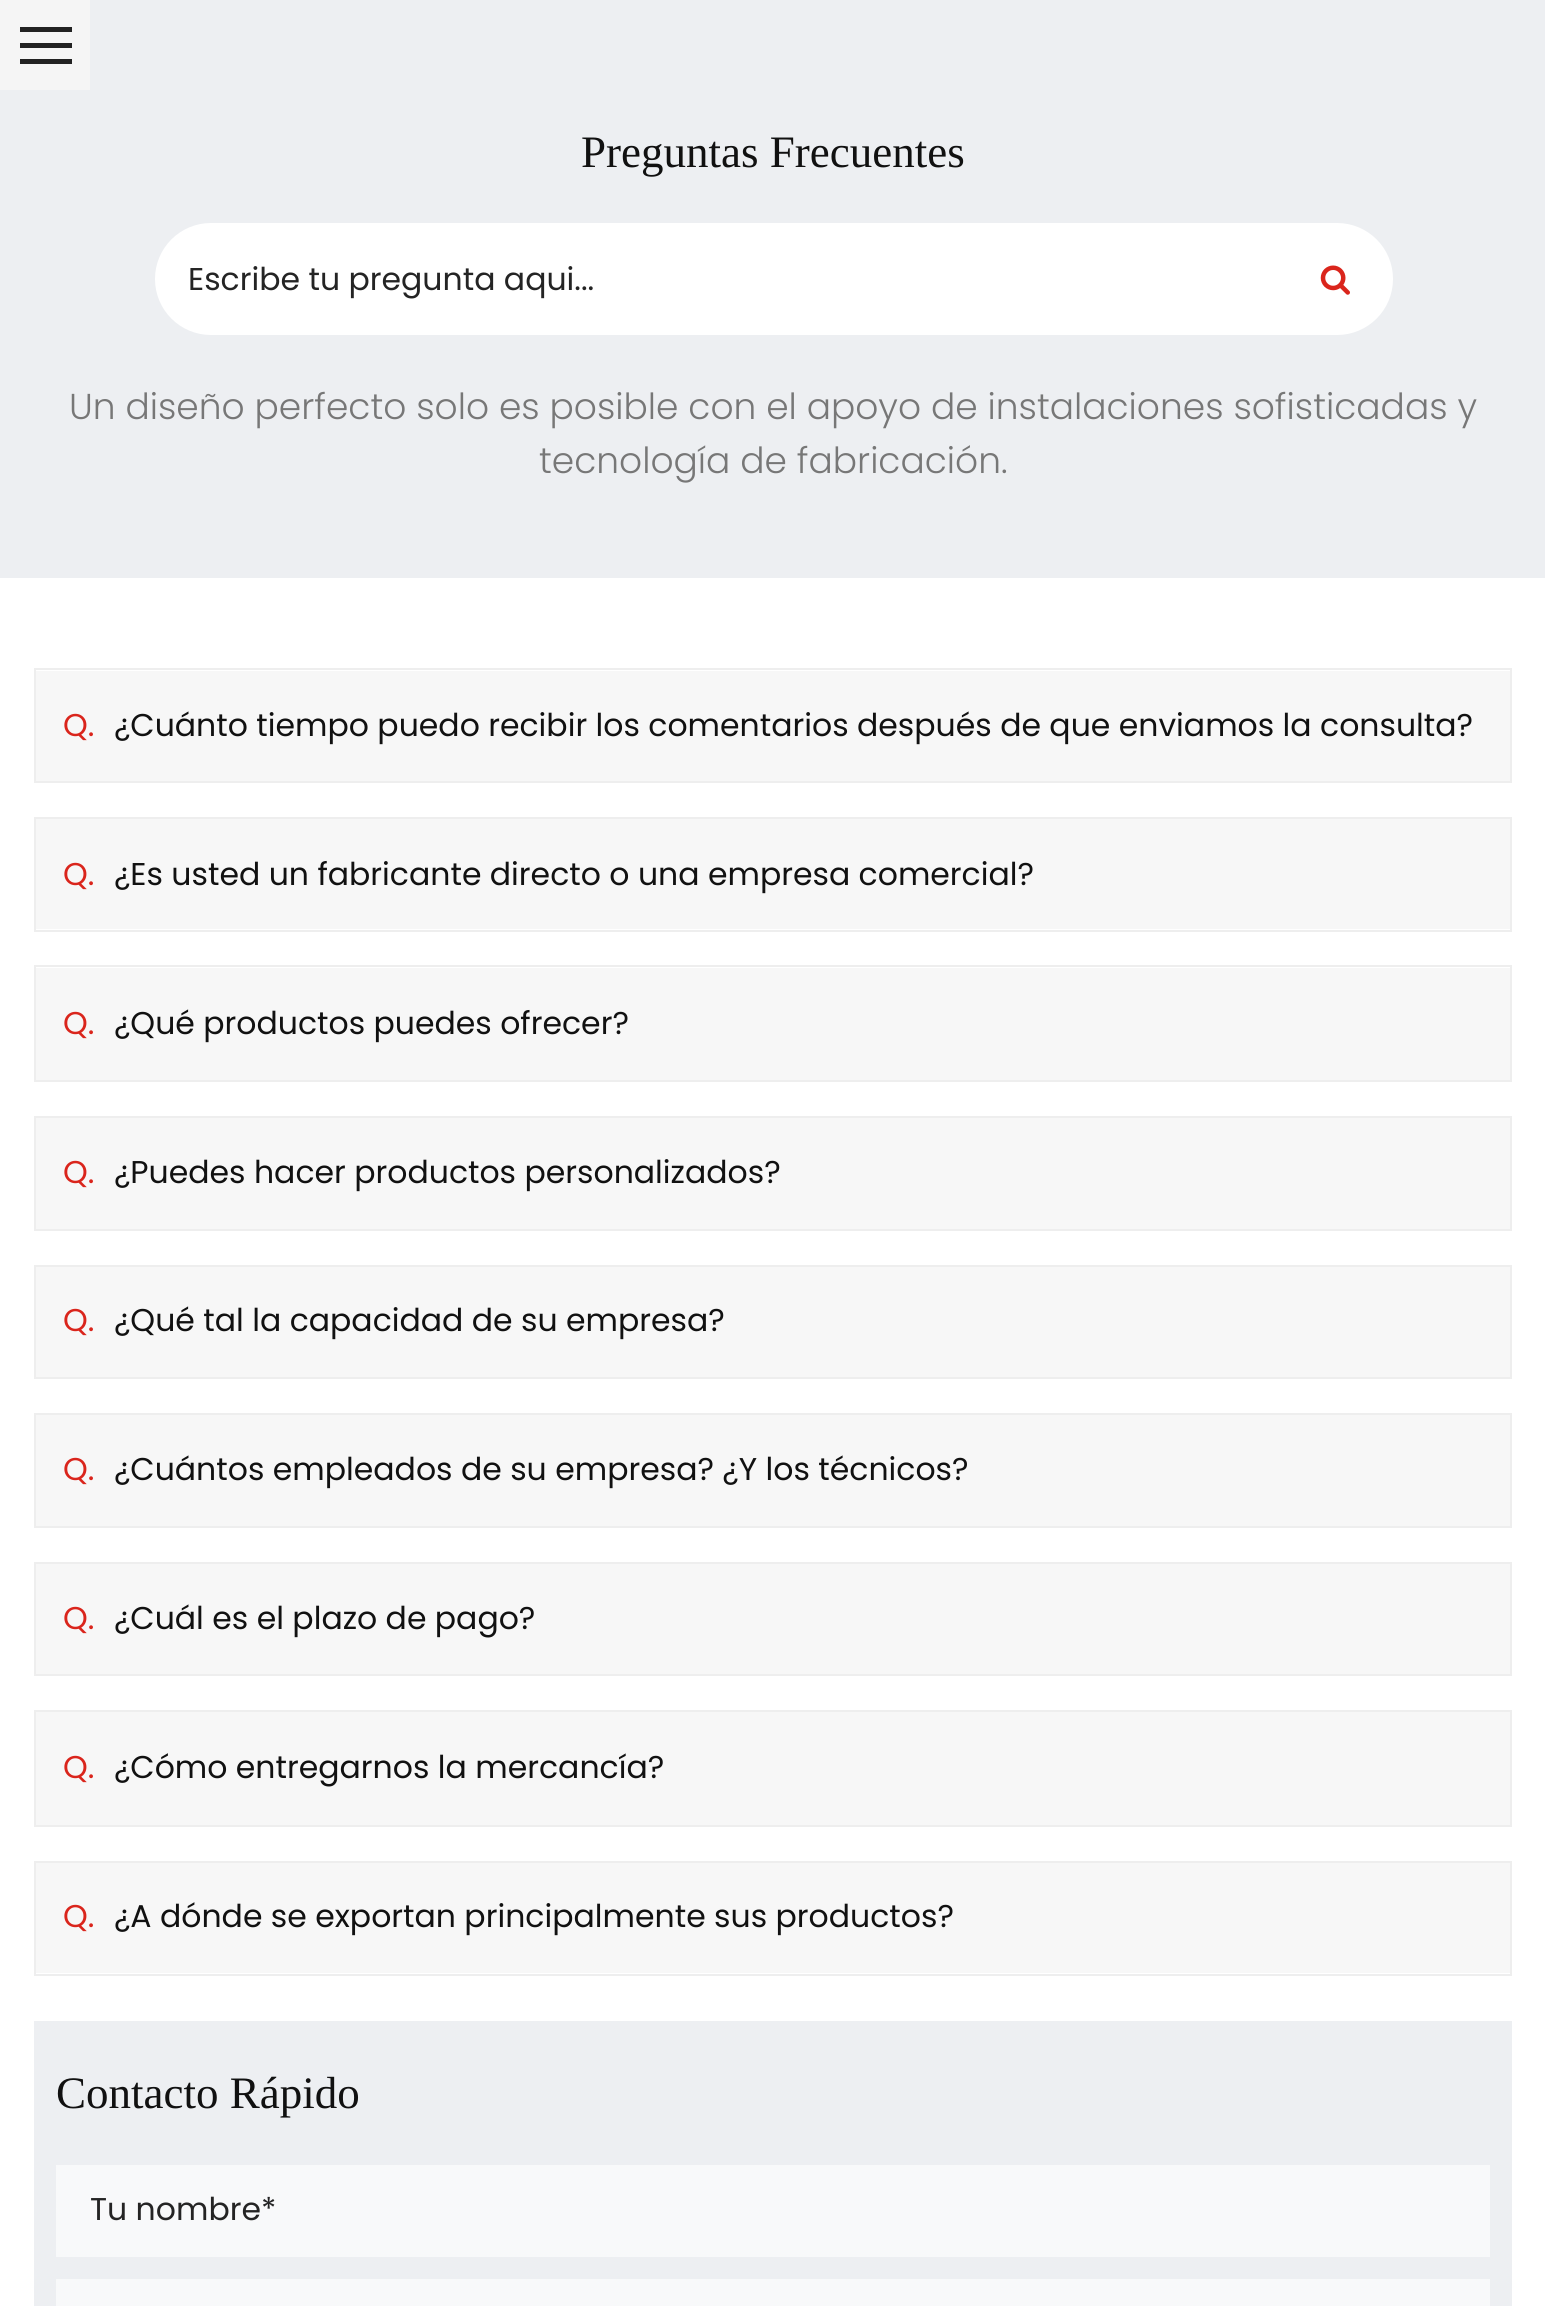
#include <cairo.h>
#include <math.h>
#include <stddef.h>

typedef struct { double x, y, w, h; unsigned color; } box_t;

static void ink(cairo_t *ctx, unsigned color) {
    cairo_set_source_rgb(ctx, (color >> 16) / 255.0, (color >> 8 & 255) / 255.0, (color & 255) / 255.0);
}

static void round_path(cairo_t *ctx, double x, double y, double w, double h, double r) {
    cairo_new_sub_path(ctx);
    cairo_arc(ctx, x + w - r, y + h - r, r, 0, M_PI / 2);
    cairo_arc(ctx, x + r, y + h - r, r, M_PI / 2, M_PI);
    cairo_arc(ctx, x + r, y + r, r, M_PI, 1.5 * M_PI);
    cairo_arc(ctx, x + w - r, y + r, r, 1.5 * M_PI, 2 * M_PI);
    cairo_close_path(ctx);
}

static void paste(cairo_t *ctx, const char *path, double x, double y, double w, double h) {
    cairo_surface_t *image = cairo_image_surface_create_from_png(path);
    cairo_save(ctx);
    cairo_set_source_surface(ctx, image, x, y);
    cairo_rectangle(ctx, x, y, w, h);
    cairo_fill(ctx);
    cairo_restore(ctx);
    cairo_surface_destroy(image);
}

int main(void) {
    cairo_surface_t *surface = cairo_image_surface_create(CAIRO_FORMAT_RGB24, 1545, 2306);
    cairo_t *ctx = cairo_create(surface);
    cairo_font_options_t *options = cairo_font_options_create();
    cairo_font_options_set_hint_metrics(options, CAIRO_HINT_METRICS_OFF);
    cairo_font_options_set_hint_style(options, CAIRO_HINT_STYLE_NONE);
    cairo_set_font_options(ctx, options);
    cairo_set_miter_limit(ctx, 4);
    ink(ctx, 0xFFFFFF);
    cairo_paint(ctx);
    {
        static const box_t items[] = {
            {0, 0, 1545, 578, 0xEDEFF2},
            {0, 0, 90, 90, 0xF5F5F5},
            {20, 27, 52, 5, 0x222222},
            {20, 43, 52, 5, 0x222222},
            {20, 59, 52, 5, 0x222222},
        };
        for (size_t i = 0; i < sizeof items / sizeof *items; i++) {
            ink(ctx, items[i].color);
            cairo_rectangle(ctx, items[i].x, items[i].y, items[i].w, items[i].h);
            cairo_fill(ctx);
        }
    }
    cairo_select_font_face(ctx, "Liberation Serif", CAIRO_FONT_SLANT_NORMAL, CAIRO_FONT_WEIGHT_NORMAL);
    cairo_set_font_size(ctx, 45);
    ink(ctx, 0x111111);
    cairo_move_to(ctx, 581, 167);
    cairo_show_text(ctx, "Preguntas Frecuentes");
    ink(ctx, 0xFFFFFF);
    round_path(ctx, 155, 223, 1238, 112, 56);
    cairo_fill(ctx);
    cairo_select_font_face(ctx, "Poppins", CAIRO_FONT_SLANT_NORMAL, CAIRO_FONT_WEIGHT_NORMAL);
    cairo_set_font_size(ctx, 31.5);
    ink(ctx, 0x242424);
    cairo_move_to(ctx, 188, 290);
    cairo_show_text(ctx, "Escribe tu pregunta aqui...");
    paste(ctx, "media/1.png", 1320, 265, 30, 30);
    cairo_select_font_face(ctx, "Poppins Light", CAIRO_FONT_SLANT_NORMAL, CAIRO_FONT_WEIGHT_NORMAL);
    cairo_set_font_size(ctx, 36);
    ink(ctx, 0x777777);
    cairo_move_to(ctx, 69, 419);
    cairo_show_text(ctx, "Un diseño perfecto solo es posible con el apoyo de instalaciones sofisticadas y");
    cairo_move_to(ctx, 539, 473);
    cairo_show_text(ctx, "tecnología de fabricación.");
    cairo_rectangle(ctx, 35, 669, 1476, 113);
    ink(ctx, 0xEEEEEE);
    cairo_stroke(ctx);
    ink(ctx, 0xF7F7F7);
    cairo_rectangle(ctx, 36, 671, 1474, 110);
    cairo_fill(ctx);
    cairo_select_font_face(ctx, "Poppins", CAIRO_FONT_SLANT_NORMAL, CAIRO_FONT_WEIGHT_NORMAL);
    cairo_set_font_size(ctx, 31.5);
    ink(ctx, 0xDA251C);
    cairo_move_to(ctx, 63, 736);
    cairo_show_text(ctx, "Q.");
    ink(ctx, 0x111111);
    cairo_move_to(ctx, 114, 736);
    cairo_show_text(ctx, "¿Cuánto tiempo puedo recibir los comentarios después de que enviamos la consulta?");
    cairo_rectangle(ctx, 35, 818, 1476, 113);
    ink(ctx, 0xEEEEEE);
    cairo_stroke(ctx);
    ink(ctx, 0xF7F7F7);
    cairo_rectangle(ctx, 36, 819, 1474, 110);
    cairo_fill(ctx);
    ink(ctx, 0xDA251C);
    cairo_move_to(ctx, 63, 885);
    cairo_show_text(ctx, "Q.");
    ink(ctx, 0x111111);
    cairo_move_to(ctx, 114, 885);
    cairo_show_text(ctx, "¿Es usted un fabricante directo o una empresa comercial?");
    cairo_rectangle(ctx, 35, 966, 1476, 115);
    ink(ctx, 0xEEEEEE);
    cairo_stroke(ctx);
    ink(ctx, 0xF7F7F7);
    cairo_rectangle(ctx, 36, 968, 1474, 112);
    cairo_fill(ctx);
    ink(ctx, 0xDA251C);
    cairo_move_to(ctx, 63, 1034);
    cairo_show_text(ctx, "Q.");
    ink(ctx, 0x111111);
    cairo_move_to(ctx, 114, 1034);
    cairo_show_text(ctx, "¿Qué productos puedes ofrecer?");
    cairo_rectangle(ctx, 35, 1117, 1476, 113);
    ink(ctx, 0xEEEEEE);
    cairo_stroke(ctx);
    ink(ctx, 0xF7F7F7);
    cairo_rectangle(ctx, 36, 1118, 1474, 111);
    cairo_fill(ctx);
    ink(ctx, 0xDA251C);
    cairo_move_to(ctx, 63, 1183);
    cairo_show_text(ctx, "Q.");
    ink(ctx, 0x111111);
    cairo_move_to(ctx, 114, 1183);
    cairo_show_text(ctx, "¿Puedes hacer productos personalizados?");
    cairo_rectangle(ctx, 35, 1266, 1476, 112);
    ink(ctx, 0xEEEEEE);
    cairo_stroke(ctx);
    ink(ctx, 0xF7F7F7);
    cairo_rectangle(ctx, 36, 1267, 1474, 110);
    cairo_fill(ctx);
    ink(ctx, 0xDA251C);
    cairo_move_to(ctx, 63, 1331);
    cairo_show_text(ctx, "Q.");
    ink(ctx, 0x111111);
    cairo_move_to(ctx, 114, 1331);
    cairo_show_text(ctx, "¿Qué tal la capacidad de su empresa?");
    cairo_rectangle(ctx, 35, 1414, 1476, 113);
    ink(ctx, 0xEEEEEE);
    cairo_stroke(ctx);
    ink(ctx, 0xF7F7F7);
    cairo_rectangle(ctx, 36, 1415, 1474, 111);
    cairo_fill(ctx);
    ink(ctx, 0xDA251C);
    cairo_move_to(ctx, 63, 1480);
    cairo_show_text(ctx, "Q.");
    ink(ctx, 0x111111);
    cairo_move_to(ctx, 114, 1480);
    cairo_show_text(ctx, "¿Cuántos empleados de su empresa? ¿Y los técnicos?");
    cairo_rectangle(ctx, 35, 1563, 1476, 112);
    ink(ctx, 0xEEEEEE);
    cairo_stroke(ctx);
    ink(ctx, 0xF7F7F7);
    cairo_rectangle(ctx, 36, 1564, 1474, 110);
    cairo_fill(ctx);
    ink(ctx, 0xDA251C);
    cairo_move_to(ctx, 63, 1629);
    cairo_show_text(ctx, "Q.");
    ink(ctx, 0x111111);
    cairo_move_to(ctx, 114, 1629);
    cairo_show_text(ctx, "¿Cuál es el plazo de pago?");
    cairo_rectangle(ctx, 35, 1711, 1476, 115);
    ink(ctx, 0xEEEEEE);
    cairo_stroke(ctx);
    ink(ctx, 0xF7F7F7);
    cairo_rectangle(ctx, 36, 1712, 1474, 113);
    cairo_fill(ctx);
    ink(ctx, 0xDA251C);
    cairo_move_to(ctx, 63, 1778);
    cairo_show_text(ctx, "Q.");
    ink(ctx, 0x111111);
    cairo_move_to(ctx, 114, 1778);
    cairo_show_text(ctx, "¿Cómo entregarnos la mercancía?");
    cairo_rectangle(ctx, 35, 1862, 1476, 113);
    ink(ctx, 0xEEEEEE);
    cairo_stroke(ctx);
    ink(ctx, 0xF7F7F7);
    cairo_rectangle(ctx, 36, 1863, 1474, 110);
    cairo_fill(ctx);
    ink(ctx, 0xDA251C);
    cairo_move_to(ctx, 63, 1927);
    cairo_show_text(ctx, "Q.");
    ink(ctx, 0x111111);
    cairo_move_to(ctx, 114, 1927);
    cairo_show_text(ctx, "¿A dónde se exportan principalmente sus productos?");
    ink(ctx, 0xEDEFF2);
    cairo_rectangle(ctx, 34, 2021, 1478, 285);
    cairo_fill(ctx);
    cairo_select_font_face(ctx, "Liberation Serif", CAIRO_FONT_SLANT_NORMAL, CAIRO_FONT_WEIGHT_NORMAL);
    cairo_set_font_size(ctx, 45);
    ink(ctx, 0x111111);
    cairo_move_to(ctx, 56, 2108);
    cairo_show_text(ctx, "Contacto Rápido");
    ink(ctx, 0xF8F9FA);
    cairo_rectangle(ctx, 56, 2165, 1434, 92);
    cairo_fill(ctx);
    cairo_select_font_face(ctx, "Poppins", CAIRO_FONT_SLANT_NORMAL, CAIRO_FONT_WEIGHT_NORMAL);
    cairo_set_font_size(ctx, 31.5);
    ink(ctx, 0x242424);
    cairo_move_to(ctx, 90, 2220);
    cairo_show_text(ctx, "Tu nombre*");
    ink(ctx, 0xF8F9FA);
    cairo_rectangle(ctx, 56, 2279, 1434, 27);
    cairo_fill(ctx);
    cairo_surface_write_to_png(surface, "image.png");
    cairo_font_options_destroy(options);
    cairo_destroy(ctx);
    cairo_surface_destroy(surface);
    return 0;
}
